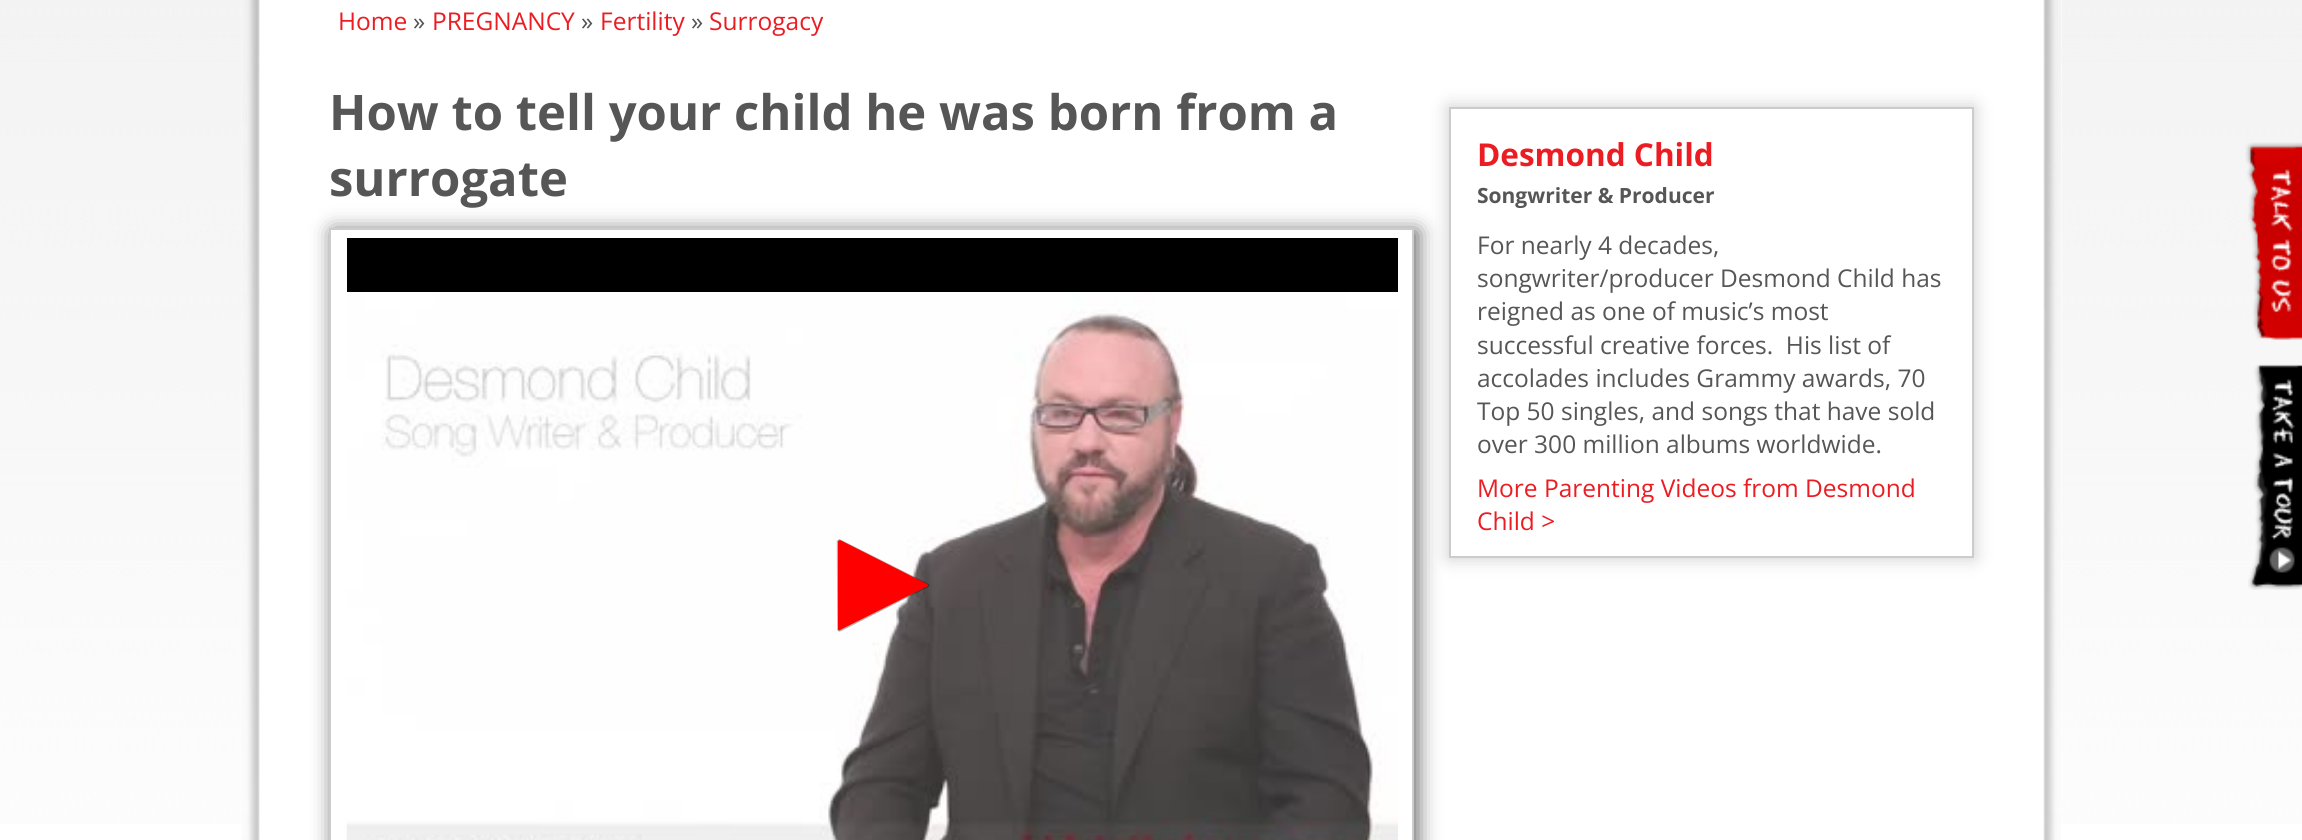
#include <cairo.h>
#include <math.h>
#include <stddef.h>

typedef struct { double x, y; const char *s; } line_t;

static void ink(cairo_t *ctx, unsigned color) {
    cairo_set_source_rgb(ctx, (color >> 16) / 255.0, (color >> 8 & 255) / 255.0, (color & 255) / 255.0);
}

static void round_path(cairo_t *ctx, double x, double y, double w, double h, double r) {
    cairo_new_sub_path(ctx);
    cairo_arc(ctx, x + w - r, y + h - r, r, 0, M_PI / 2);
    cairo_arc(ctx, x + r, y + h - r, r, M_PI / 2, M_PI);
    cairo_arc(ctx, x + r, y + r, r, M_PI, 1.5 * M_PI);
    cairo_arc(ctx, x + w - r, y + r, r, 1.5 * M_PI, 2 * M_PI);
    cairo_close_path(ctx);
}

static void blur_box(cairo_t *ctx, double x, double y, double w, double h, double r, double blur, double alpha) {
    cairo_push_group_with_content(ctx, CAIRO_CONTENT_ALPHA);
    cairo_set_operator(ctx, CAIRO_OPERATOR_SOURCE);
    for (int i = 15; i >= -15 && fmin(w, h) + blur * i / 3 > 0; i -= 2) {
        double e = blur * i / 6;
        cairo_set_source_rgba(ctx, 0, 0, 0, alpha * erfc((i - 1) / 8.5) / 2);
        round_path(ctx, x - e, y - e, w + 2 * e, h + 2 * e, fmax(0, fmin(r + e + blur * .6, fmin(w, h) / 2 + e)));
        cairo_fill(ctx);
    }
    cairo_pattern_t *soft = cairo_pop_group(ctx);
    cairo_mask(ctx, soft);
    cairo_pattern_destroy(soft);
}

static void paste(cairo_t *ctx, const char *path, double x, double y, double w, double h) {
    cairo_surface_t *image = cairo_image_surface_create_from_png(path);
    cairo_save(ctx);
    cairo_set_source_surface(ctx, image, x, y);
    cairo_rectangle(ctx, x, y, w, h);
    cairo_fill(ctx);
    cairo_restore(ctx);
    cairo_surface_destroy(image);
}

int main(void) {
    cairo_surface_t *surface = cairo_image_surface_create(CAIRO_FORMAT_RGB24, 2302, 840);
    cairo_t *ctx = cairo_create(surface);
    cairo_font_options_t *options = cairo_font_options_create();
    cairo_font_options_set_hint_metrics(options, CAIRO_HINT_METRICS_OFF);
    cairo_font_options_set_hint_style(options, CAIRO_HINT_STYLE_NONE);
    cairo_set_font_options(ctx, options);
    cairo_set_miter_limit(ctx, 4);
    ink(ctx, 0xFFFFFF);
    cairo_paint(ctx);
    paste(ctx, "media/1.png", 0, 0, 2302, 824);
    paste(ctx, "media/2.png", 241, 0, 1821, 840);
    paste(ctx, "media/3.png", 241, 0, 1820, 840);
    cairo_select_font_face(ctx, "Open Sans", CAIRO_FONT_SLANT_NORMAL, CAIRO_FONT_WEIGHT_NORMAL);
    cairo_set_font_size(ctx, 24.5);
    ink(ctx, 0xEB1D23);
    cairo_move_to(ctx, 338, 30);
    cairo_show_text(ctx, "Home");
    ink(ctx, 0x565656);
    cairo_move_to(ctx, 413, 30);
    cairo_show_text(ctx, "»");
    ink(ctx, 0xEB1D23);
    cairo_move_to(ctx, 432, 30);
    cairo_show_text(ctx, "PREGNANCY");
    ink(ctx, 0x565656);
    cairo_move_to(ctx, 581, 30);
    cairo_show_text(ctx, "»");
    ink(ctx, 0xEB1D23);
    cairo_move_to(ctx, 600, 30);
    cairo_show_text(ctx, "Fertility");
    ink(ctx, 0x565656);
    cairo_move_to(ctx, 691, 30);
    cairo_show_text(ctx, "»");
    ink(ctx, 0xEB1D23);
    cairo_move_to(ctx, 709, 30);
    cairo_show_text(ctx, "Surrogacy");
    cairo_select_font_face(ctx, "Open Sans", CAIRO_FONT_SLANT_NORMAL, CAIRO_FONT_WEIGHT_BOLD);
    cairo_set_font_size(ctx, 49);
    ink(ctx, 0x565656);
    cairo_move_to(ctx, 329, 130);
    cairo_show_text(ctx, "How to tell your child he was born from a");
    cairo_save(ctx);
    cairo_set_fill_rule(ctx, CAIRO_FILL_RULE_EVEN_ODD);
    cairo_new_path(ctx);
    cairo_move_to(ctx, 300, 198);
    cairo_line_to(ctx, 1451, 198);
    cairo_line_to(ctx, 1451, 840);
    cairo_line_to(ctx, 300, 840);
    cairo_close_path(ctx);
    cairo_move_to(ctx, 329, 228);
    cairo_line_to(ctx, 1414, 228);
    cairo_line_to(ctx, 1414, 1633);
    cairo_line_to(ctx, 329, 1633);
    cairo_close_path(ctx);
    cairo_clip(ctx);
    ink(ctx, 0x666666);
    blur_box(ctx, 333, 231, 1085, 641, 0, 10.5, 1);
    cairo_restore(ctx);
    cairo_move_to(ctx, 329, 196);
    cairo_show_text(ctx, "surrogate");
    cairo_rectangle(ctx, 330, 229, 1083, 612);
    ink(ctx, 0xCCCCCC);
    cairo_stroke(ctx);
    ink(ctx, 0x000000);
    cairo_rectangle(ctx, 347, 238, 1051, 54);
    cairo_fill(ctx);
    paste(ctx, "media/4.png", 346, 292, 1052, 548);
    cairo_new_path(ctx);
    cairo_move_to(ctx, 840.5, 630);
    cairo_curve_to(ctx, 839.5, 630.5, 838.5, 630.5, 838.5, 629.5);
    cairo_line_to(ctx, 838, 541.5);
    cairo_line_to(ctx, 839.5, 540.5);
    cairo_line_to(ctx, 927, 584.5);
    cairo_curve_to(ctx, 928, 584.5, 928.5, 585.5, 927.5, 586);
    cairo_close_path(ctx);
    cairo_set_source_rgba(ctx, 0, 0, 0, 0.3);
    cairo_set_line_width(ctx, 2.5);
    cairo_stroke(ctx);
    ink(ctx, 0xFF0000);
    cairo_new_path(ctx);
    cairo_move_to(ctx, 840, 630);
    cairo_curve_to(ctx, 840, 631, 839, 630, 838, 630);
    cairo_line_to(ctx, 838, 541);
    cairo_line_to(ctx, 840, 540);
    cairo_line_to(ctx, 927, 584);
    cairo_curve_to(ctx, 928, 585, 928, 586, 928, 586);
    cairo_close_path(ctx);
    cairo_fill(ctx);
    cairo_save(ctx);
    cairo_set_fill_rule(ctx, CAIRO_FILL_RULE_EVEN_ODD);
    cairo_new_path(ctx);
    cairo_move_to(ctx, 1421, 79);
    cairo_line_to(ctx, 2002, 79);
    cairo_line_to(ctx, 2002, 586);
    cairo_line_to(ctx, 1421, 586);
    cairo_close_path(ctx);
    cairo_move_to(ctx, 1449, 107);
    cairo_line_to(ctx, 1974, 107);
    cairo_line_to(ctx, 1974, 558);
    cairo_line_to(ctx, 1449, 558);
    cairo_close_path(ctx);
    cairo_clip(ctx);
    ink(ctx, 0xCCCCCC);
    blur_box(ctx, 1449, 107, 525, 451, 0, 9, 1);
    cairo_restore(ctx);
    cairo_rectangle(ctx, 1450, 108, 523, 449);
    ink(ctx, 0xCCCCCC);
    cairo_set_line_width(ctx, 2);
    cairo_stroke(ctx);
    cairo_set_font_size(ctx, 31.5);
    ink(ctx, 0xEB1D23);
    cairo_move_to(ctx, 1477, 166);
    cairo_show_text(ctx, "Desmond Child");
    cairo_set_font_size(ctx, 21);
    ink(ctx, 0x565656);
    cairo_move_to(ctx, 1477, 203);
    cairo_show_text(ctx, "Songwriter & Producer");
    cairo_select_font_face(ctx, "Open Sans", CAIRO_FONT_SLANT_NORMAL, CAIRO_FONT_WEIGHT_NORMAL);
    cairo_set_font_size(ctx, 24.5);
    {
        static const line_t items[] = {
            {1477, 254, "For nearly 4 decades,"},
            {1477, 287, "songwriter/producer Desmond Child has"},
            {1477, 320, "reigned as one of music’s most"},
            {1477, 354, "successful creative forces.  His list of"},
            {1477, 387, "accolades includes Grammy awards, 70"},
            {1477, 420, "Top 50 singles, and songs that have sold"},
            {1477, 453, "over 300 million albums worldwide."},
        };
        for (size_t i = 0; i < sizeof items / sizeof *items; i++) {
            cairo_move_to(ctx, items[i].x, items[i].y);
            cairo_show_text(ctx, items[i].s);
        }
    }
    ink(ctx, 0xEB1D23);
    cairo_move_to(ctx, 1477, 497);
    cairo_show_text(ctx, "More Parenting Videos from Desmond");
    cairo_move_to(ctx, 1477, 530);
    cairo_show_text(ctx, "Child >");
    paste(ctx, "media/5.png", 2245, 142, 57, 198);
    paste(ctx, "media/6.png", 2248, 364, 54, 226);
    cairo_surface_write_to_png(surface, "image.png");
    cairo_font_options_destroy(options);
    cairo_destroy(ctx);
    cairo_surface_destroy(surface);
    return 0;
}
